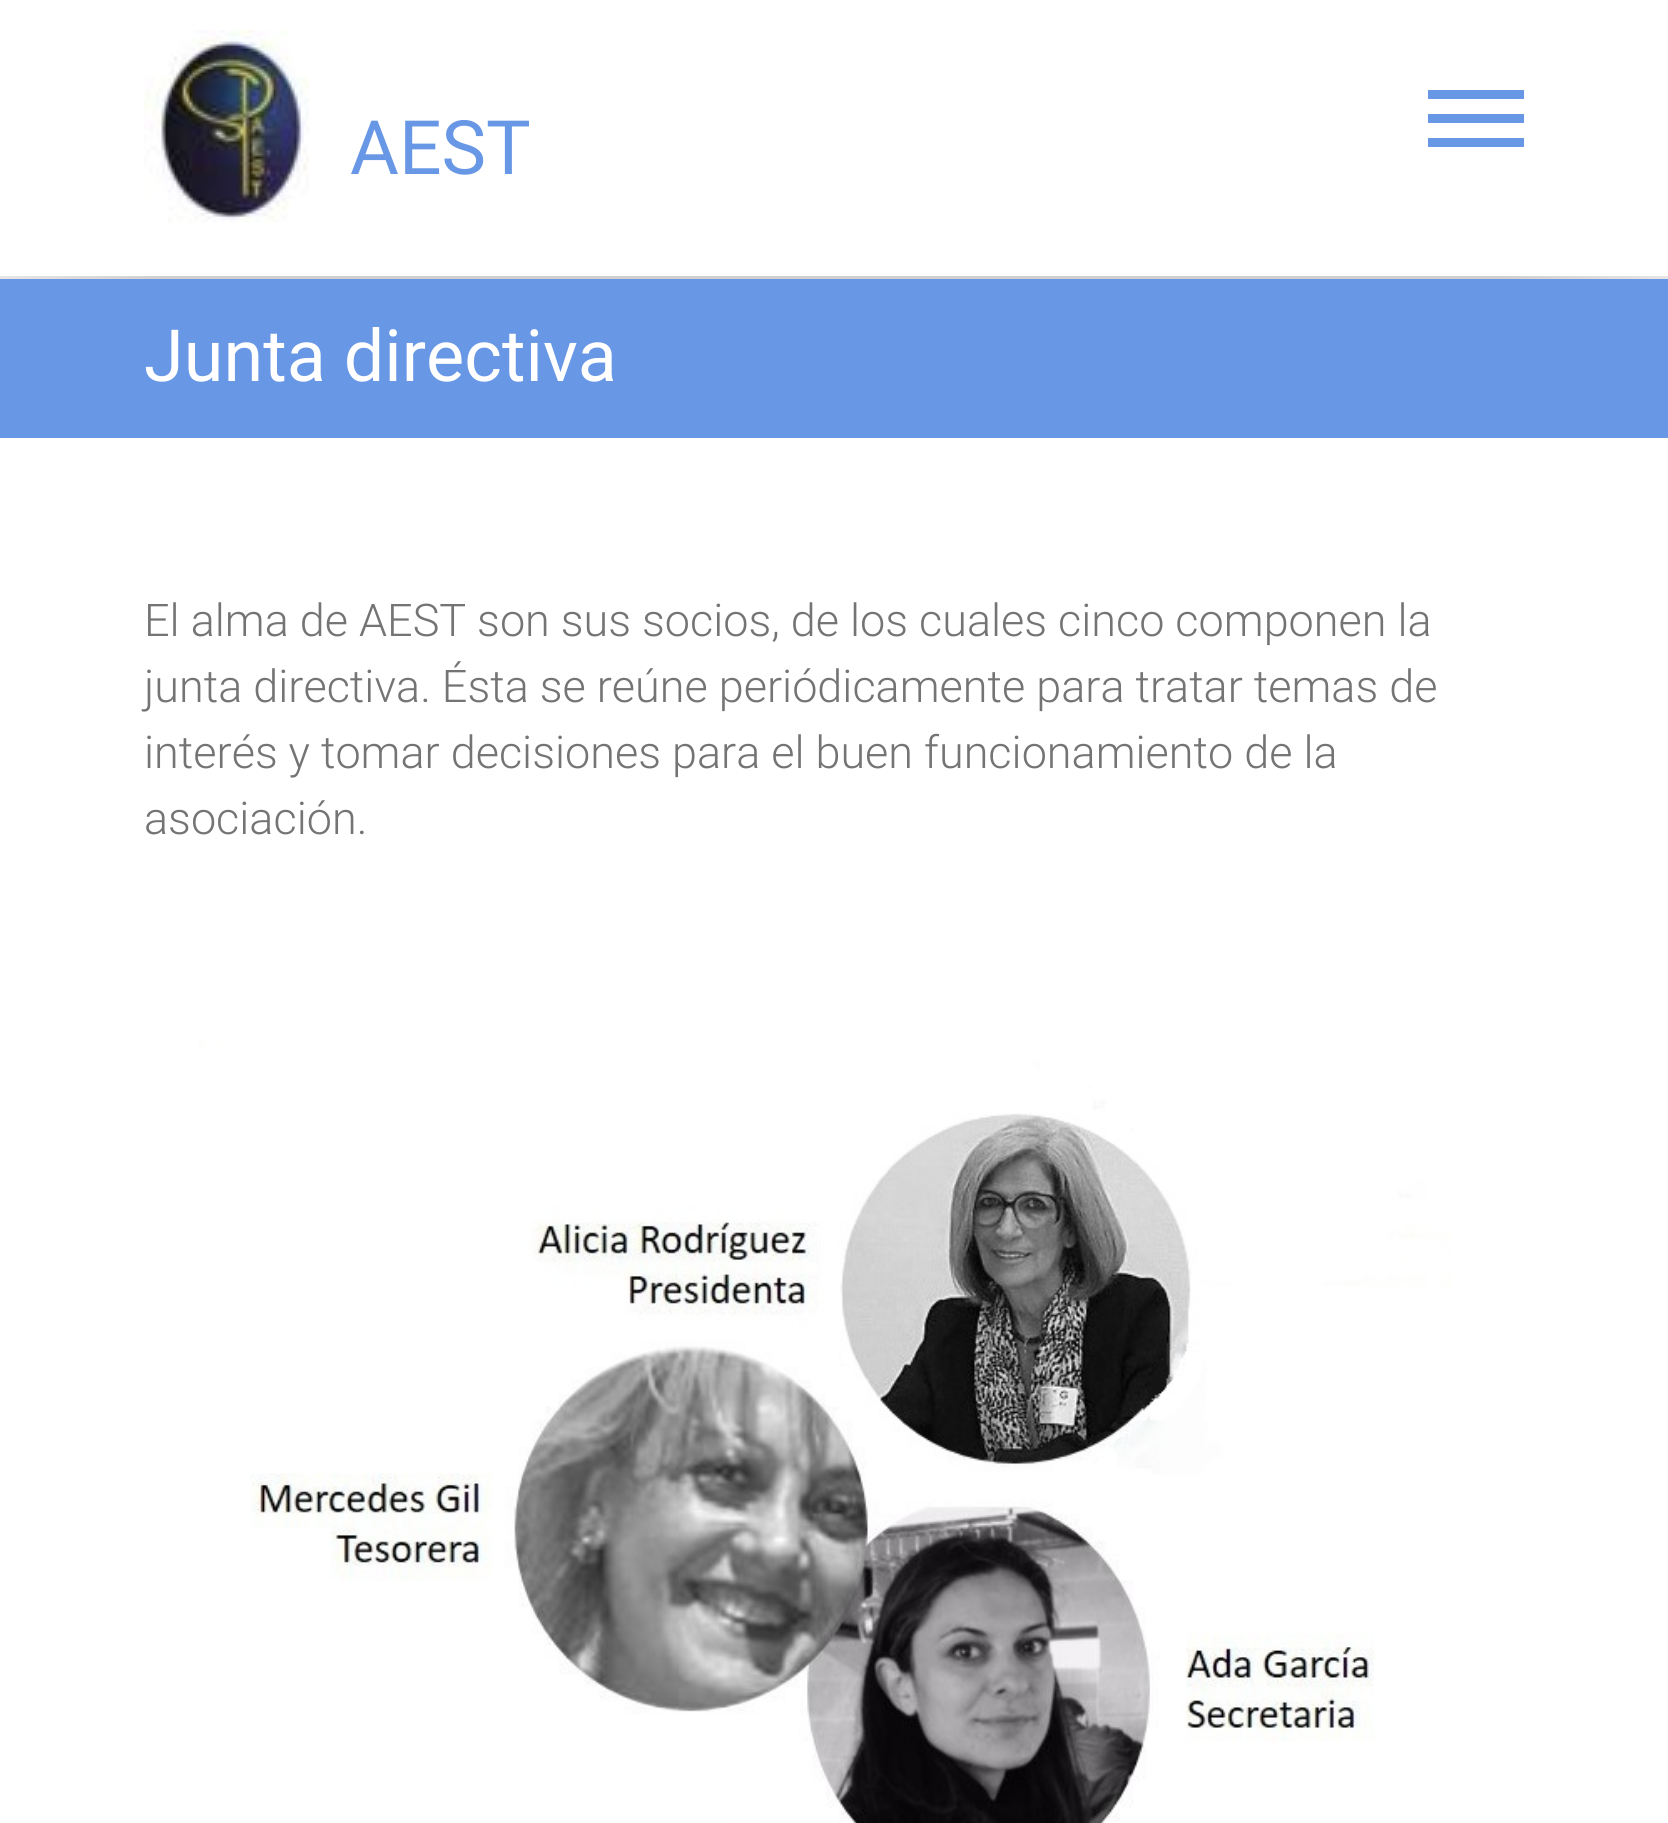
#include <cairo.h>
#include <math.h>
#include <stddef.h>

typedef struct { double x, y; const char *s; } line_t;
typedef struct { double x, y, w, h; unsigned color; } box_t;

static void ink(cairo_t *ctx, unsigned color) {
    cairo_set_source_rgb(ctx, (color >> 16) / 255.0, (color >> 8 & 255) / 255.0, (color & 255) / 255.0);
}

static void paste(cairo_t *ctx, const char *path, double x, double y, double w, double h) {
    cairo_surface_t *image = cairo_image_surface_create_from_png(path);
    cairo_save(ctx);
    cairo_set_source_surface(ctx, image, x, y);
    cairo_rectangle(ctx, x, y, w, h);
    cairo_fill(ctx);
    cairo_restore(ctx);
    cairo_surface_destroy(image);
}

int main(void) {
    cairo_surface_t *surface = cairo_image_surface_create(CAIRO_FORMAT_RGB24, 1668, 1823);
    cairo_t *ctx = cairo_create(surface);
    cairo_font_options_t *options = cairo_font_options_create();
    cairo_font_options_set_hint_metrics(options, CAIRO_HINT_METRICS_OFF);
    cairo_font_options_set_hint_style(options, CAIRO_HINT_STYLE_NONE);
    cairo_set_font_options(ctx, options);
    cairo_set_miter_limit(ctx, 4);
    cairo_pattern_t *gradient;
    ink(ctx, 0xFFFFFF);
    cairo_paint(ctx);
    paste(ctx, "media/1.png", 144, 30, 165, 193);
    cairo_select_font_face(ctx, "Roboto", CAIRO_FONT_SLANT_NORMAL, CAIRO_FONT_WEIGHT_NORMAL);
    cairo_set_font_size(ctx, 75);
    ink(ctx, 0x6897E5);
    cairo_move_to(ctx, 350, 174);
    cairo_show_text(ctx, "AEST");
    {
        static const box_t items[] = {
            {1428, 90, 96, 9, 0x6897E5},
            {1428, 114, 96, 9, 0x6897E5},
            {1428, 138, 96, 9, 0x6897E5},
        };
        for (size_t i = 0; i < sizeof items / sizeof *items; i++) {
            ink(ctx, items[i].color);
            cairo_rectangle(ctx, items[i].x, items[i].y, items[i].w, items[i].h);
            cairo_fill(ctx);
        }
    }
    gradient = cairo_pattern_create_linear(0, 278, 1668, 277);
    cairo_pattern_add_color_stop_rgba(gradient, 0, 0.902, 0.902, 0.902, 1);
    cairo_pattern_add_color_stop_rgba(gradient, 0.1, 0.812, 0.812, 0.812, 1);
    cairo_pattern_add_color_stop_rgba(gradient, 0.9, 0.812, 0.812, 0.812, 1);
    cairo_pattern_add_color_stop_rgba(gradient, 1, 0.902, 0.902, 0.902, 1);
    cairo_set_source(ctx, gradient);
    cairo_pattern_destroy(gradient);
    cairo_rectangle(ctx, 0, 276, 1668, 3);
    cairo_fill(ctx);
    ink(ctx, 0x6897E5);
    cairo_rectangle(ctx, 0, 279, 1668, 159);
    cairo_fill(ctx);
    cairo_set_font_size(ctx, 72);
    ink(ctx, 0xFFFFFF);
    cairo_move_to(ctx, 144, 381);
    cairo_show_text(ctx, "Junta directiva");
    cairo_select_font_face(ctx, "Roboto Light", CAIRO_FONT_SLANT_NORMAL, CAIRO_FONT_WEIGHT_NORMAL);
    cairo_set_font_size(ctx, 45);
    ink(ctx, 0x747474);
    {
        static const line_t items[] = {
            {144, 636, "El alma de AEST son sus socios, de los cuales cinco componen la"},
            {144, 702, "junta directiva. Ésta se reúne periódicamente para tratar temas de"},
            {144, 768, "interés y tomar decisiones para el buen funcionamiento de la"},
            {144, 834, "asociación."},
        };
        for (size_t i = 0; i < sizeof items / sizeof *items; i++) {
            cairo_move_to(ctx, items[i].x, items[i].y);
            cairo_show_text(ctx, items[i].s);
        }
    }
    paste(ctx, "media/2.png", 198, 1039, 1254, 784);
    cairo_surface_write_to_png(surface, "image.png");
    cairo_font_options_destroy(options);
    cairo_destroy(ctx);
    cairo_surface_destroy(surface);
    return 0;
}
